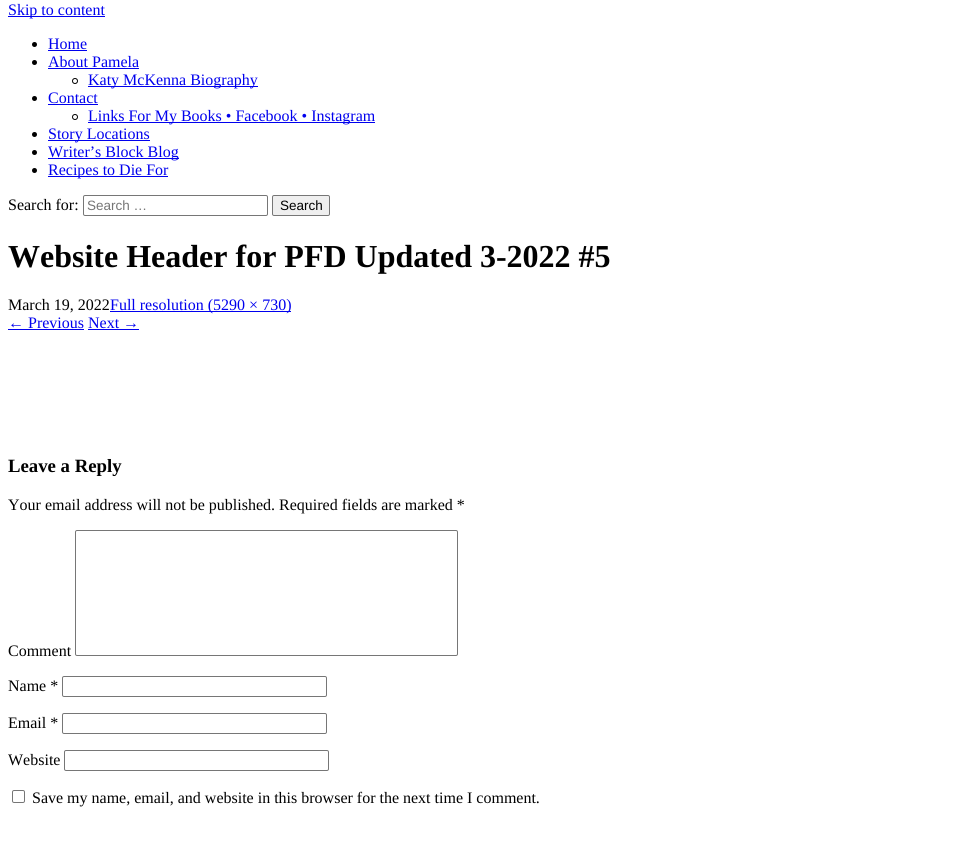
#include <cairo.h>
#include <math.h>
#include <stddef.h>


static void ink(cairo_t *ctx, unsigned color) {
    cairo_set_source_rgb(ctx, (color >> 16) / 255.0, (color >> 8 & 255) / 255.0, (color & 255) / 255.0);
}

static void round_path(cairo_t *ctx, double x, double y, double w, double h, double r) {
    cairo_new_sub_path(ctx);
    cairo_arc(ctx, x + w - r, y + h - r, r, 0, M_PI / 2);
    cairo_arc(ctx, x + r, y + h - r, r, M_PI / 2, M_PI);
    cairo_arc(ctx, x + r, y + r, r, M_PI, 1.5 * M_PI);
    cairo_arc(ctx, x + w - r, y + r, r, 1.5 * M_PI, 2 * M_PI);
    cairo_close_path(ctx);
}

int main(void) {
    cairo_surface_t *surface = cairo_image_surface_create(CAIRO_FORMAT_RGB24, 978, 841);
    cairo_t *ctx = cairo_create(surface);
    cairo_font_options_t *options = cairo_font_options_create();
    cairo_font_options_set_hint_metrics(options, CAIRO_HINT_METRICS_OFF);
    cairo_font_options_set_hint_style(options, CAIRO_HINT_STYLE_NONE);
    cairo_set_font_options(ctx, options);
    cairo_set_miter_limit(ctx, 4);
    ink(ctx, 0xFFFFFF);
    cairo_paint(ctx);
    ink(ctx, 0x0000EE);
    cairo_rectangle(ctx, 8, 16, 97, 1);
    cairo_fill(ctx);
    cairo_select_font_face(ctx, "Liberation Serif", CAIRO_FONT_SLANT_NORMAL, CAIRO_FONT_WEIGHT_NORMAL);
    cairo_set_font_size(ctx, 16);
    cairo_move_to(ctx, 8, 15);
    cairo_show_text(ctx, "Skip to content");
    ink(ctx, 0x000000);
    cairo_new_path(ctx);
    cairo_arc(ctx, 34.5, 44.5, 2.5, 0, 2 * M_PI);
    cairo_fill(ctx);
    ink(ctx, 0x0000EE);
    cairo_move_to(ctx, 48, 49);
    cairo_show_text(ctx, "Home");
    cairo_rectangle(ctx, 48, 50, 39, 1);
    cairo_fill(ctx);
    ink(ctx, 0x000000);
    cairo_arc(ctx, 34.5, 62.5, 2.5, 0, 2 * M_PI);
    cairo_fill(ctx);
    ink(ctx, 0x0000EE);
    cairo_move_to(ctx, 48, 67);
    cairo_show_text(ctx, "About Pamela");
    cairo_rectangle(ctx, 48, 68, 91, 1);
    cairo_fill(ctx);
    cairo_arc(ctx, 75, 81, 2.5, 0, 2 * M_PI);
    ink(ctx, 0x000000);
    cairo_set_line_width(ctx, 1);
    cairo_stroke(ctx);
    ink(ctx, 0x0000EE);
    cairo_rectangle(ctx, 88, 86, 170, 1);
    cairo_fill(ctx);
    cairo_move_to(ctx, 88, 85);
    cairo_show_text(ctx, "Katy McKenna Biography");
    ink(ctx, 0x000000);
    cairo_new_path(ctx);
    cairo_arc(ctx, 34.5, 98.5, 2.5, 0, 2 * M_PI);
    cairo_fill(ctx);
    ink(ctx, 0x0000EE);
    cairo_move_to(ctx, 48, 103);
    cairo_show_text(ctx, "Contact");
    cairo_rectangle(ctx, 48, 104, 50, 1);
    cairo_fill(ctx);
    cairo_arc(ctx, 75, 117, 2.5, 0, 2 * M_PI);
    ink(ctx, 0x000000);
    cairo_stroke(ctx);
    ink(ctx, 0x0000EE);
    cairo_rectangle(ctx, 88, 122, 287, 1);
    cairo_fill(ctx);
    cairo_move_to(ctx, 88, 121);
    cairo_show_text(ctx, "Links For My Books • Facebook • Instagram");
    ink(ctx, 0x000000);
    cairo_new_path(ctx);
    cairo_arc(ctx, 34.5, 134.5, 2.5, 0, 2 * M_PI);
    cairo_fill(ctx);
    ink(ctx, 0x0000EE);
    cairo_rectangle(ctx, 48, 140, 102, 1);
    cairo_fill(ctx);
    cairo_move_to(ctx, 48, 139);
    cairo_show_text(ctx, "Story Locations");
    ink(ctx, 0x000000);
    cairo_new_path(ctx);
    cairo_arc(ctx, 34.5, 152.5, 2.5, 0, 2 * M_PI);
    cairo_fill(ctx);
    ink(ctx, 0x0000EE);
    cairo_rectangle(ctx, 48, 158, 131, 1);
    cairo_fill(ctx);
    cairo_move_to(ctx, 48, 157);
    cairo_show_text(ctx, "Writer’s Block Blog");
    ink(ctx, 0x000000);
    cairo_new_path(ctx);
    cairo_arc(ctx, 34.5, 170.5, 2.5, 0, 2 * M_PI);
    cairo_fill(ctx);
    ink(ctx, 0x0000EE);
    cairo_rectangle(ctx, 48, 176, 120, 1);
    cairo_fill(ctx);
    cairo_move_to(ctx, 48, 175);
    cairo_show_text(ctx, "Recipes to Die For");
    ink(ctx, 0x000000);
    cairo_move_to(ctx, 8, 210);
    cairo_show_text(ctx, "Search for:");
    round_path(ctx, 83.5, 195.5, 184, 20, 1.5);
    ink(ctx, 0x767676);
    cairo_stroke(ctx);
    cairo_select_font_face(ctx, "Liberation Sans", CAIRO_FONT_SLANT_NORMAL, CAIRO_FONT_WEIGHT_NORMAL);
    cairo_set_font_size(ctx, 13.5);
    ink(ctx, 0x757575);
    cairo_move_to(ctx, 87, 210);
    cairo_show_text(ctx, "Search …");
    ink(ctx, 0xEFEFEF);
    round_path(ctx, 272.5, 195.5, 57, 20, 1.5);
    cairo_fill_preserve(ctx);
    ink(ctx, 0x767676);
    cairo_stroke(ctx);
    ink(ctx, 0x000000);
    cairo_move_to(ctx, 280, 210);
    cairo_show_text(ctx, "Search");
    cairo_select_font_face(ctx, "Liberation Serif", CAIRO_FONT_SLANT_NORMAL, CAIRO_FONT_WEIGHT_BOLD);
    cairo_set_font_size(ctx, 32);
    cairo_move_to(ctx, 8, 267);
    cairo_show_text(ctx, "Website Header for PFD Updated 3-2022 #5");
    cairo_select_font_face(ctx, "Liberation Serif", CAIRO_FONT_SLANT_NORMAL, CAIRO_FONT_WEIGHT_NORMAL);
    cairo_set_font_size(ctx, 16);
    cairo_move_to(ctx, 8, 310);
    cairo_show_text(ctx, "March 19, 2022");
    ink(ctx, 0x0000EE);
    cairo_rectangle(ctx, 110, 311, 181, 1);
    cairo_fill(ctx);
    cairo_move_to(ctx, 110, 310);
    cairo_show_text(ctx, "Full resolution (5290 × 730)");
    cairo_move_to(ctx, 8, 328);
    cairo_show_text(ctx, "← Previous Next →");
    cairo_rectangle(ctx, 8, 329, 76, 1);
    cairo_fill(ctx);
    cairo_rectangle(ctx, 88, 329, 51, 1);
    cairo_fill(ctx);
    cairo_select_font_face(ctx, "Liberation Serif", CAIRO_FONT_SLANT_NORMAL, CAIRO_FONT_WEIGHT_BOLD);
    cairo_set_font_size(ctx, 18.75);
    ink(ctx, 0x000000);
    cairo_move_to(ctx, 8, 472);
    cairo_show_text(ctx, "Leave a Reply");
    cairo_select_font_face(ctx, "Liberation Serif", CAIRO_FONT_SLANT_NORMAL, CAIRO_FONT_WEIGHT_NORMAL);
    cairo_set_font_size(ctx, 16);
    cairo_move_to(ctx, 8, 510);
    cairo_show_text(ctx, "Your email address will not be published. Required fields are marked *");
    cairo_move_to(ctx, 8, 656);
    cairo_show_text(ctx, "Comment");
    round_path(ctx, 75.5, 530.5, 382, 125, 1.5);
    ink(ctx, 0x767676);
    cairo_stroke(ctx);
    ink(ctx, 0x000000);
    cairo_move_to(ctx, 8, 691);
    cairo_show_text(ctx, "Name *");
    round_path(ctx, 62.5, 676.5, 264, 20, 1.5);
    ink(ctx, 0x767676);
    cairo_stroke(ctx);
    ink(ctx, 0x000000);
    cairo_move_to(ctx, 8, 728);
    cairo_show_text(ctx, "Email *");
    round_path(ctx, 62.5, 713.5, 264, 20, 1.5);
    ink(ctx, 0x767676);
    cairo_stroke(ctx);
    ink(ctx, 0x000000);
    cairo_move_to(ctx, 8, 765);
    cairo_show_text(ctx, "Website");
    round_path(ctx, 64.5, 750.5, 264, 20, 1.5);
    ink(ctx, 0x767676);
    cairo_stroke(ctx);
    round_path(ctx, 12.5, 790.5, 12, 12, 1.5);
    cairo_stroke(ctx);
    ink(ctx, 0x000000);
    cairo_move_to(ctx, 32, 803);
    cairo_show_text(ctx, "Save my name, email, and website in this browser for the next time I comment.");
    cairo_surface_write_to_png(surface, "image.png");
    cairo_font_options_destroy(options);
    cairo_destroy(ctx);
    cairo_surface_destroy(surface);
    return 0;
}
